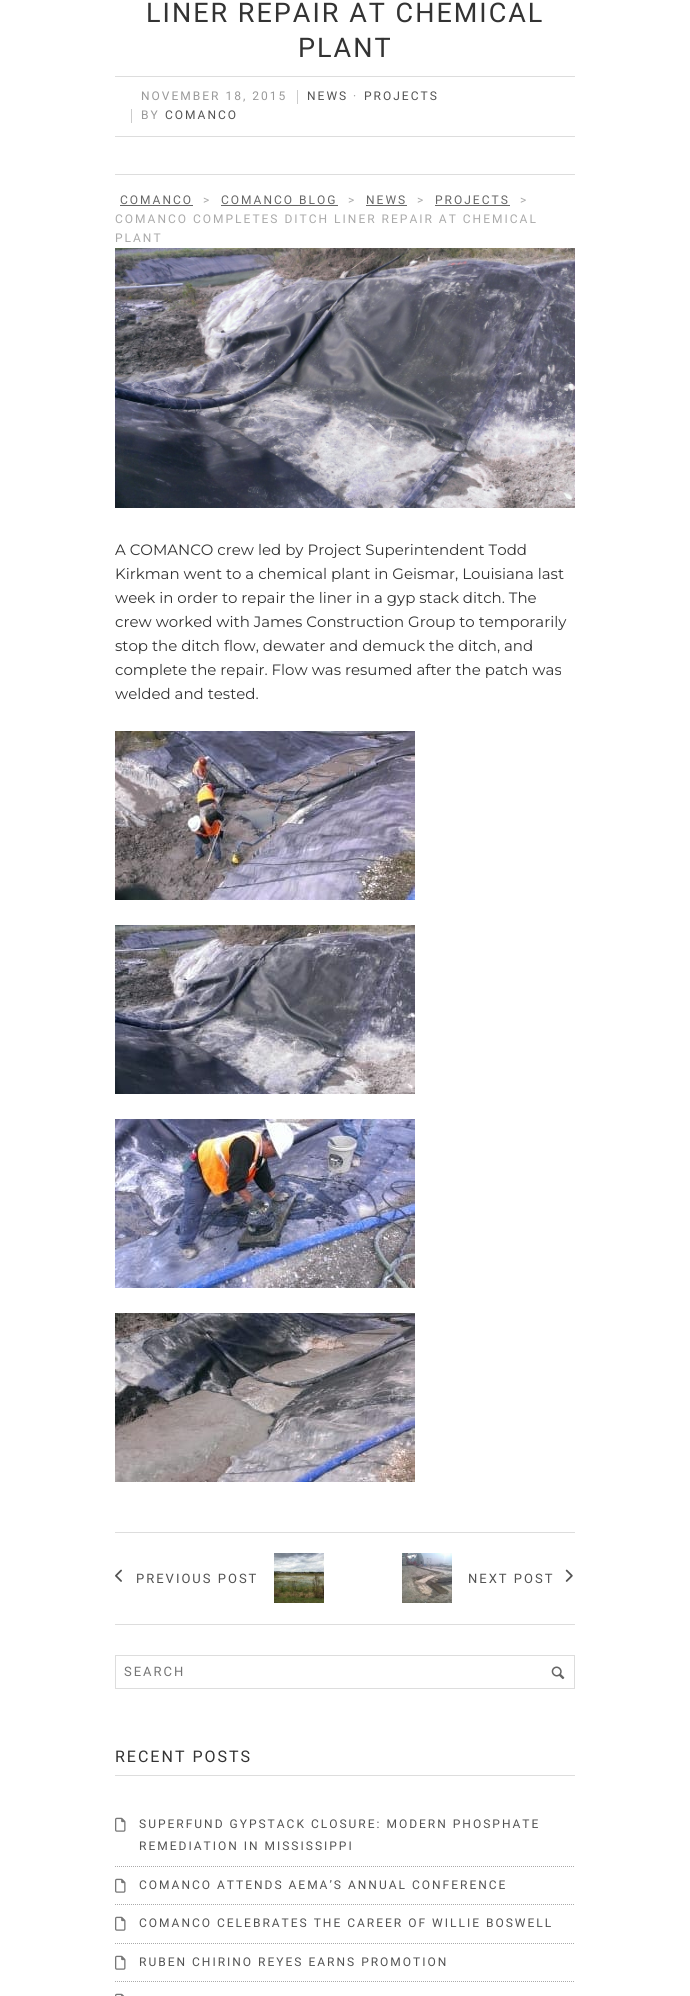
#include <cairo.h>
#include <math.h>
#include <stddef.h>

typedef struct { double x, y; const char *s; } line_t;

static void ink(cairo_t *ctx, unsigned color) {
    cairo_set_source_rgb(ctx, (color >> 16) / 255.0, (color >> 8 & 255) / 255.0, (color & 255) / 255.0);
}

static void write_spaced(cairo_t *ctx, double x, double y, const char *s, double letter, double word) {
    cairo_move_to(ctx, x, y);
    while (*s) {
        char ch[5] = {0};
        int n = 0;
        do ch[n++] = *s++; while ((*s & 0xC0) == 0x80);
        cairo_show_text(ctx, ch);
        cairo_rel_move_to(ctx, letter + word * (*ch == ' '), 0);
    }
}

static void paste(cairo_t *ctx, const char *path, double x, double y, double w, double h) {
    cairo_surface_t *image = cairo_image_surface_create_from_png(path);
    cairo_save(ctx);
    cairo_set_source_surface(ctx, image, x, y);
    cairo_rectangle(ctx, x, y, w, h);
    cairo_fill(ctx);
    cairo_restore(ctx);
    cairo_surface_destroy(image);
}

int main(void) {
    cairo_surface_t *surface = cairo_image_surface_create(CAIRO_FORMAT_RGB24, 690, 1996);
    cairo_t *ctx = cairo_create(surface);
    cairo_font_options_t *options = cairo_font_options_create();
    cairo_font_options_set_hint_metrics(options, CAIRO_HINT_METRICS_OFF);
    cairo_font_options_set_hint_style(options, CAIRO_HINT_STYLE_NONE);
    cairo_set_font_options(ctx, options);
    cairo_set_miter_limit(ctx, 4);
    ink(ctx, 0xFFFFFF);
    cairo_paint(ctx);
    ink(ctx, 0xDDDDDD);
    cairo_rectangle(ctx, 115, 174, 460, 1);
    cairo_fill(ctx);
    cairo_select_font_face(ctx, "Roboto", CAIRO_FONT_SLANT_NORMAL, CAIRO_FONT_WEIGHT_NORMAL);
    cairo_set_font_size(ctx, 27);
    ink(ctx, 0x333333);
    write_spaced(ctx, 146, 22, "LINER REPAIR AT CHEMICAL", 2, 0);
    write_spaced(ctx, 298, 57, "PLANT", 2, 0);
    ink(ctx, 0xDDDDDD);
    cairo_rectangle(ctx, 115, 76, 460, 1);
    cairo_fill(ctx);
    cairo_rectangle(ctx, 115, 136, 460, 1);
    cairo_fill(ctx);
    cairo_set_font_size(ctx, 12);
    ink(ctx, 0x999999);
    write_spaced(ctx, 141, 100, "NOVEMBER 18, 2015", 2, 0);
    ink(ctx, 0xCCCCCC);
    cairo_rectangle(ctx, 297, 90, 1, 14);
    cairo_fill(ctx);
    ink(ctx, 0x525252);
    write_spaced(ctx, 307, 100, "NEWS", 2, 0);
    ink(ctx, 0x999999);
    write_spaced(ctx, 353, 100, "·", 2, 0);
    ink(ctx, 0x525252);
    write_spaced(ctx, 364, 100, "PROJECTS", 2, 0);
    ink(ctx, 0xCCCCCC);
    cairo_rectangle(ctx, 131, 109, 1, 14);
    cairo_fill(ctx);
    ink(ctx, 0x999999);
    write_spaced(ctx, 141, 119, "BY", 2, 0);
    ink(ctx, 0x525252);
    write_spaced(ctx, 165, 119, "COMANCO", 2, 0);
    ink(ctx, 0x666666);
    write_spaced(ctx, 120, 204, "COMANCO", 2, 0);
    cairo_rectangle(ctx, 120, 205, 73, 1);
    cairo_fill(ctx);
    ink(ctx, 0xAAAAAA);
    write_spaced(ctx, 203, 204, ">", 2, 0);
    ink(ctx, 0x666666);
    write_spaced(ctx, 221, 204, "COMANCO BLOG", 2, 0);
    cairo_rectangle(ctx, 221, 205, 117, 1);
    cairo_fill(ctx);
    ink(ctx, 0xAAAAAA);
    write_spaced(ctx, 348, 204, ">", 2, 0);
    ink(ctx, 0x666666);
    write_spaced(ctx, 366, 204, "NEWS", 2, 0);
    cairo_rectangle(ctx, 366, 205, 41, 1);
    cairo_fill(ctx);
    ink(ctx, 0xAAAAAA);
    write_spaced(ctx, 417, 204, ">", 2, 0);
    ink(ctx, 0x666666);
    write_spaced(ctx, 435, 204, "PROJECTS", 2, 0);
    cairo_rectangle(ctx, 435, 205, 75, 1);
    cairo_fill(ctx);
    ink(ctx, 0xAAAAAA);
    {
        static const line_t items[] = {
            {520, 204, ">"},
            {115, 223, "COMANCO COMPLETES DITCH LINER REPAIR AT CHEMICAL"},
            {115, 242, "PLANT"},
        };
        for (size_t i = 0; i < sizeof items / sizeof *items; i++) {
            write_spaced(ctx, items[i].x, items[i].y, items[i].s, 2, 0);
        }
    }
    paste(ctx, "media/1.png", 115, 248, 460, 260);
    cairo_select_font_face(ctx, "Montserrat Thin", CAIRO_FONT_SLANT_NORMAL, CAIRO_FONT_WEIGHT_NORMAL);
    cairo_set_font_size(ctx, 15);
    ink(ctx, 0x333333);
    {
        static const line_t items[] = {
            {115, 555, "A COMANCO crew led by Project Superintendent Todd"},
            {115, 579, "Kirkman went to a chemical plant in Geismar, Louisiana last"},
            {115, 603, "week in order to repair the liner in a gyp stack ditch. The"},
            {115, 627, "crew worked with James Construction Group to temporarily"},
            {115, 651, "stop the ditch flow, dewater and demuck the ditch, and"},
            {115, 675, "complete the repair. Flow was resumed after the patch was"},
            {115, 699, "welded and tested."},
        };
        for (size_t i = 0; i < sizeof items / sizeof *items; i++) {
            cairo_move_to(ctx, items[i].x, items[i].y);
            cairo_show_text(ctx, items[i].s);
        }
    }
    paste(ctx, "media/2.png", 115, 731, 300, 169);
    paste(ctx, "media/3.png", 115, 925, 300, 169);
    paste(ctx, "media/4.png", 115, 1119, 300, 169);
    paste(ctx, "media/5.png", 115, 1313, 300, 169);
    ink(ctx, 0xDDDDDD);
    cairo_rectangle(ctx, 115, 1532, 460, 1);
    cairo_fill(ctx);
    cairo_rectangle(ctx, 115, 1624, 460, 1);
    cairo_fill(ctx);
    paste(ctx, "media/6.png", 115, 1569, 7, 13);
    cairo_select_font_face(ctx, "Roboto", CAIRO_FONT_SLANT_NORMAL, CAIRO_FONT_WEIGHT_NORMAL);
    cairo_set_font_size(ctx, 13);
    ink(ctx, 0x525252);
    write_spaced(ctx, 136, 1583, "PREVIOUS POST", 2, 0);
    paste(ctx, "media/7.png", 274, 1553, 50, 50);
    paste(ctx, "media/8.png", 402, 1553, 50, 50);
    write_spaced(ctx, 468, 1583, "NEXT POST", 2, 0);
    paste(ctx, "media/9.png", 565, 1569, 8, 13);
    cairo_rectangle(ctx, 115.5, 1655.5, 459, 33);
    ink(ctx, 0xDDDDDD);
    cairo_set_line_width(ctx, 1);
    cairo_stroke(ctx);
    ink(ctx, 0x757575);
    write_spaced(ctx, 124, 1676, "SEARCH", 2, 0);
    paste(ctx, "media/10.png", 551, 1666, 14, 14);
    ink(ctx, 0xDDDDDD);
    cairo_rectangle(ctx, 115, 1775, 460, 1);
    cairo_fill(ctx);
    cairo_set_font_size(ctx, 16);
    ink(ctx, 0x333333);
    write_spaced(ctx, 115, 1762, "RECENT POSTS", 2, 0);
    paste(ctx, "media/11.png", 115, 1817, 11, 15);
    cairo_set_font_size(ctx, 12);
    ink(ctx, 0x525252);
    write_spaced(ctx, 139, 1828, "SUPERFUND GYPSTACK CLOSURE: MODERN PHOSPHATE", 2, 0);
    write_spaced(ctx, 139, 1850, "REMEDIATION IN MISSISSIPPI", 2, 0);
    cairo_new_path(ctx);
    cairo_move_to(ctx, 115, 1866.5);
    cairo_line_to(ctx, 575, 1866.5);
    ink(ctx, 0xAAAAAA);
    cairo_set_dash(ctx, (double[]){1, 1}, 2, 0);
    cairo_stroke(ctx);
    paste(ctx, "media/11.png", 115, 1878, 11, 15);
    ink(ctx, 0x525252);
    write_spaced(ctx, 139, 1889, "COMANCO ATTENDS AEMA’S ANNUAL CONFERENCE", 2, 0);
    cairo_new_path(ctx);
    cairo_move_to(ctx, 115, 1904.5);
    cairo_line_to(ctx, 575, 1904.5);
    ink(ctx, 0xAAAAAA);
    cairo_stroke(ctx);
    paste(ctx, "media/11.png", 115, 1916, 11, 15);
    ink(ctx, 0x525252);
    write_spaced(ctx, 139, 1927, "COMANCO CELEBRATES THE CAREER OF WILLIE BOSWELL", 2, 0);
    cairo_new_path(ctx);
    cairo_move_to(ctx, 115, 1943.5);
    cairo_line_to(ctx, 575, 1943.5);
    ink(ctx, 0xAAAAAA);
    cairo_stroke(ctx);
    paste(ctx, "media/11.png", 115, 1955, 11, 15);
    ink(ctx, 0x525252);
    write_spaced(ctx, 139, 1966, "RUBEN CHIRINO REYES EARNS PROMOTION", 2, 0);
    cairo_new_path(ctx);
    cairo_move_to(ctx, 115, 1981.5);
    cairo_line_to(ctx, 575, 1981.5);
    ink(ctx, 0xAAAAAA);
    cairo_stroke(ctx);
    paste(ctx, "media/12.png", 115, 1993, 10, 3);
    cairo_surface_write_to_png(surface, "image.png");
    cairo_font_options_destroy(options);
    cairo_destroy(ctx);
    cairo_surface_destroy(surface);
    return 0;
}
